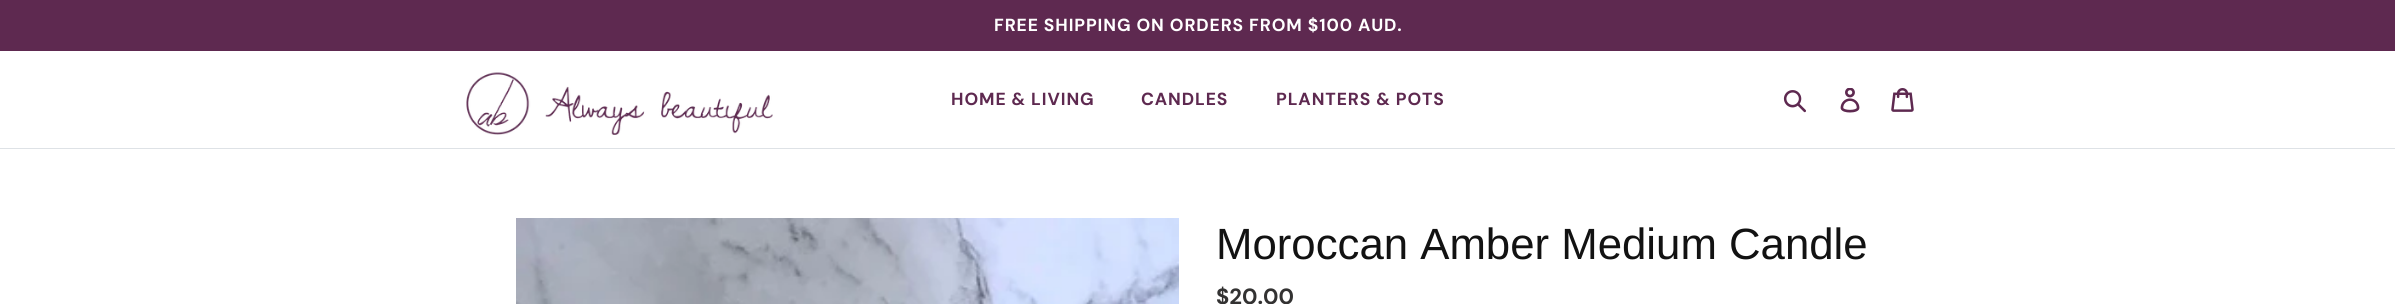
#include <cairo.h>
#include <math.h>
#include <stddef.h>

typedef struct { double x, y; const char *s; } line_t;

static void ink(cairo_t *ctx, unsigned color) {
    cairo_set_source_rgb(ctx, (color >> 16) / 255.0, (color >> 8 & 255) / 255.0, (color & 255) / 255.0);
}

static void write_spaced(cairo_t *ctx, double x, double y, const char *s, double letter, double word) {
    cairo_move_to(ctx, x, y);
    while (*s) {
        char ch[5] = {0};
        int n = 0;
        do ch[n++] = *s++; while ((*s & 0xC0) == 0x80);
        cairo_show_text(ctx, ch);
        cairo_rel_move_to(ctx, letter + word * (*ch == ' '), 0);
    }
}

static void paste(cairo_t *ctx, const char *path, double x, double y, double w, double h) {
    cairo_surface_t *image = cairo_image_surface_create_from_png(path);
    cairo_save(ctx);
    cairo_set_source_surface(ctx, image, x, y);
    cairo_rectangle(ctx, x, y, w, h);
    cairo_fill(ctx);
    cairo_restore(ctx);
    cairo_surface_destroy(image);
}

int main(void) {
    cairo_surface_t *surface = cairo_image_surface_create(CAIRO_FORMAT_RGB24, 2395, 304);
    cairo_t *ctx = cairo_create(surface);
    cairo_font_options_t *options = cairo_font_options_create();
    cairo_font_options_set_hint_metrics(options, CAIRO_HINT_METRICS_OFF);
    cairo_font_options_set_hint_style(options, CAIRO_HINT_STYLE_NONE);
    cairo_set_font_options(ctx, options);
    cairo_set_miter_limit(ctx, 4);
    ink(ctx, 0xFFFFFF);
    cairo_paint(ctx);
    ink(ctx, 0x5E2950);
    cairo_rectangle(ctx, 0, 0, 2395, 51);
    cairo_fill(ctx);
    cairo_select_font_face(ctx, "DM Sans", CAIRO_FONT_SLANT_NORMAL, CAIRO_FONT_WEIGHT_BOLD);
    cairo_set_font_size(ctx, 17.5);
    ink(ctx, 0xFFFFFF);
    write_spaced(ctx, 994, 31, "FREE SHIPPING ON ORDERS FROM $100 AUD.", 0.9, 0);
    ink(ctx, 0xDEE2E6);
    cairo_rectangle(ctx, 0, 148, 2395, 1);
    cairo_fill(ctx);
    paste(ctx, "media/1.png", 466, 72, 307, 63);
    ink(ctx, 0x5E2950);
    {
        static const line_t items[] = {
            {951, 105, "HOME & LIVING"},
            {1141, 105, "CANDLES"},
            {1276, 105, "PLANTERS & POTS"},
        };
        for (size_t i = 0; i < sizeof items / sizeof *items; i++) {
            write_spaced(ctx, items[i].x, items[i].y, items[i].s, 0.9, 0);
        }
    }
    paste(ctx, "media/2.png", 1783, 90, 23, 23);
    paste(ctx, "media/3.png", 1840, 88, 20, 25);
    paste(ctx, "media/4.png", 1891, 88, 23, 24);
    paste(ctx, "media/5.png", 516, 218, 663, 86);
    cairo_select_font_face(ctx, "Liberation Sans", CAIRO_FONT_SLANT_NORMAL, CAIRO_FONT_WEIGHT_NORMAL);
    cairo_set_font_size(ctx, 43.75);
    ink(ctx, 0x121212);
    cairo_move_to(ctx, 1216, 259);
    cairo_show_text(ctx, "Moroccan Amber Medium Candle");
    cairo_select_font_face(ctx, "DM Sans", CAIRO_FONT_SLANT_NORMAL, CAIRO_FONT_WEIGHT_BOLD);
    cairo_set_font_size(ctx, 22);
    ink(ctx, 0x333232);
    cairo_move_to(ctx, 1216, 304);
    cairo_show_text(ctx, "$20.00");
    cairo_surface_write_to_png(surface, "image.png");
    cairo_font_options_destroy(options);
    cairo_destroy(ctx);
    cairo_surface_destroy(surface);
    return 0;
}
